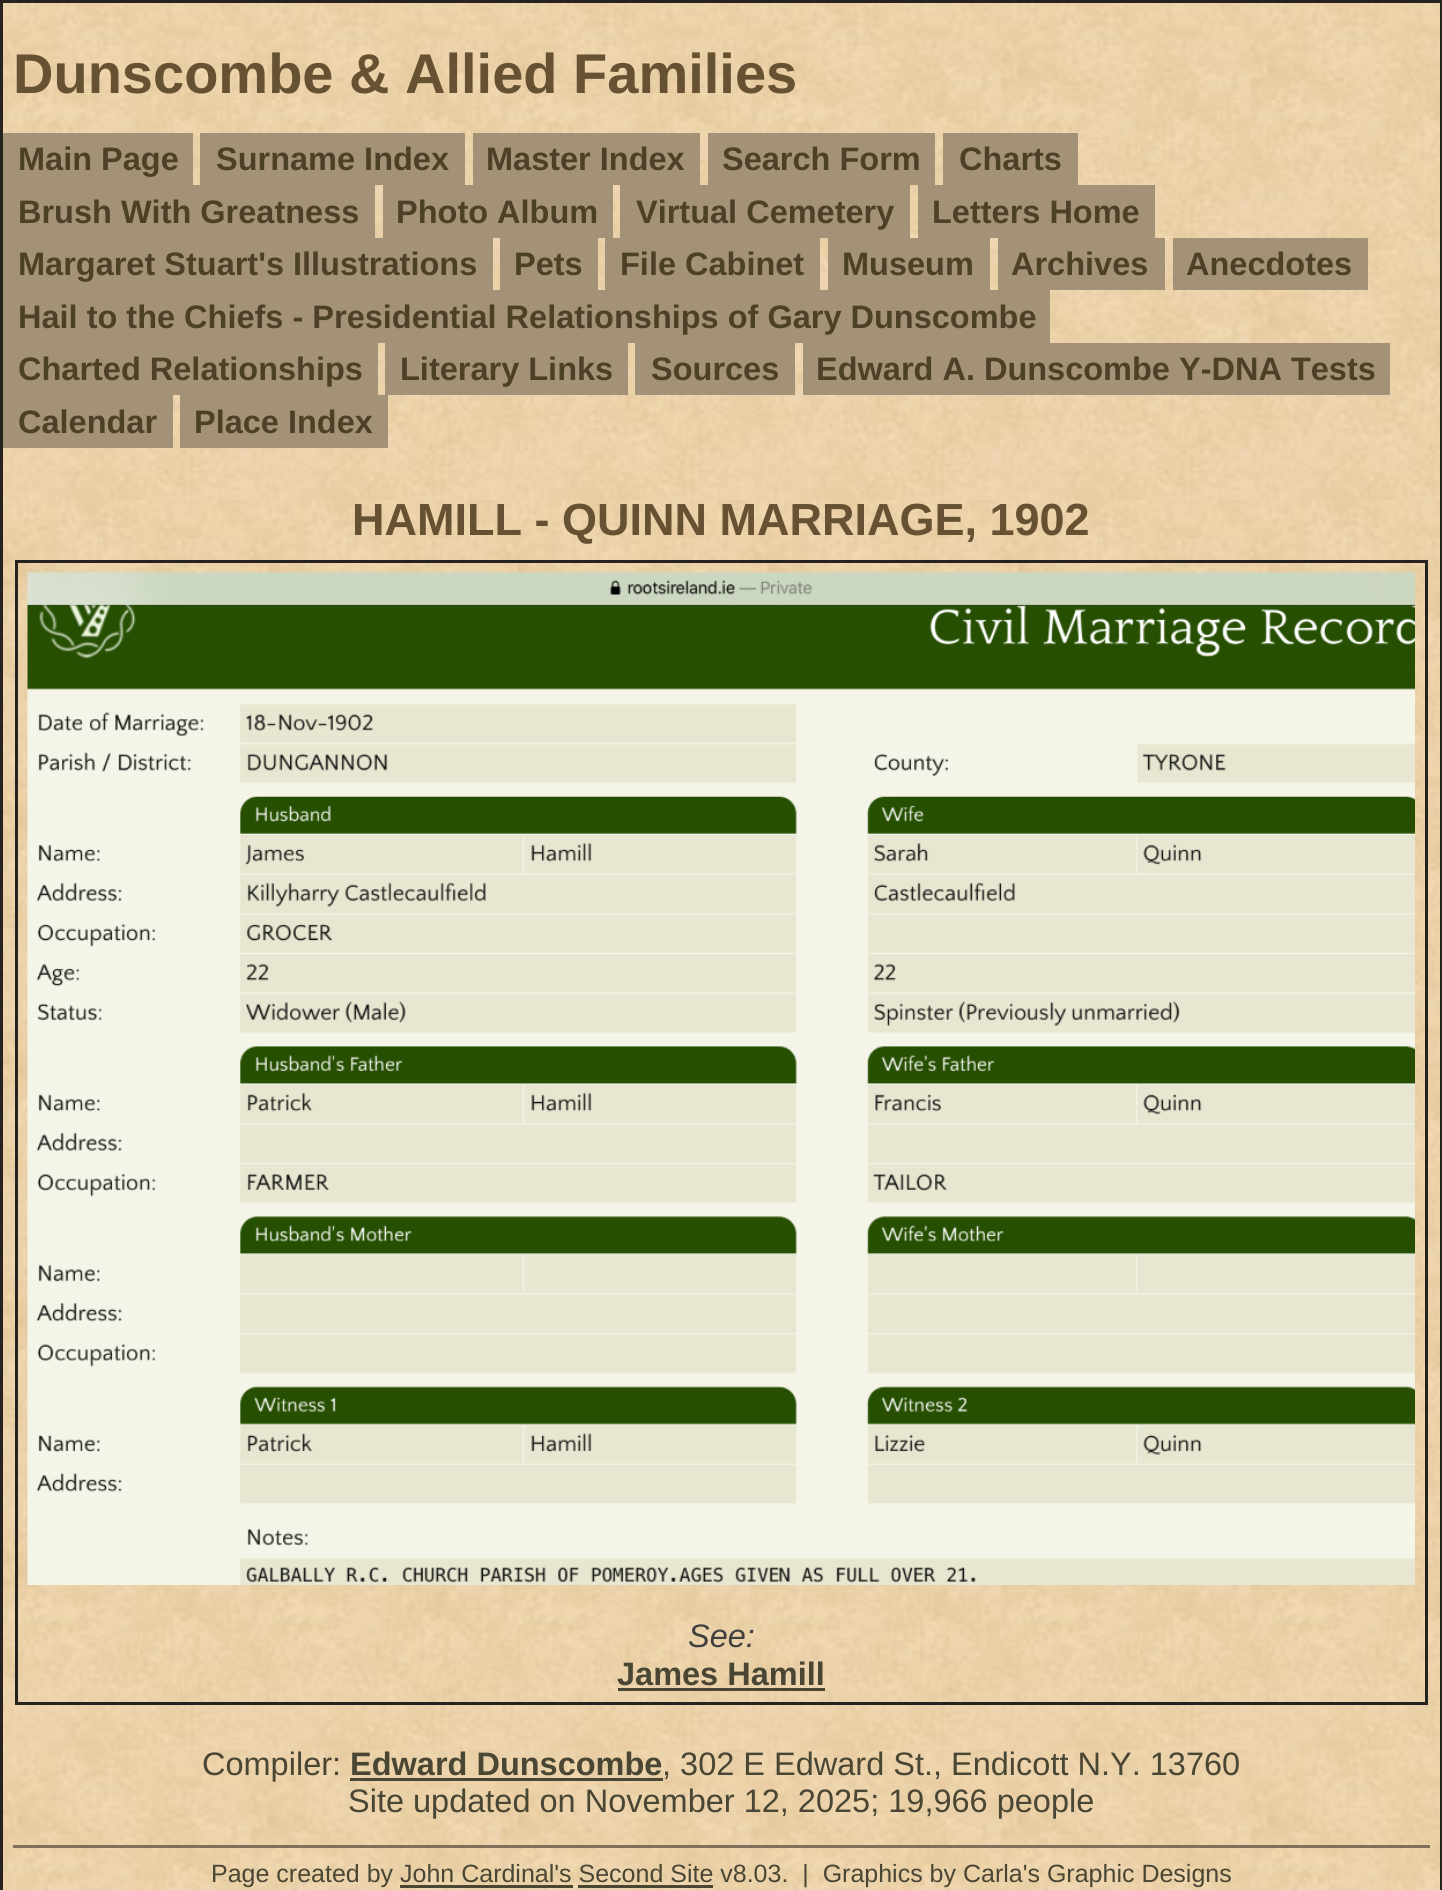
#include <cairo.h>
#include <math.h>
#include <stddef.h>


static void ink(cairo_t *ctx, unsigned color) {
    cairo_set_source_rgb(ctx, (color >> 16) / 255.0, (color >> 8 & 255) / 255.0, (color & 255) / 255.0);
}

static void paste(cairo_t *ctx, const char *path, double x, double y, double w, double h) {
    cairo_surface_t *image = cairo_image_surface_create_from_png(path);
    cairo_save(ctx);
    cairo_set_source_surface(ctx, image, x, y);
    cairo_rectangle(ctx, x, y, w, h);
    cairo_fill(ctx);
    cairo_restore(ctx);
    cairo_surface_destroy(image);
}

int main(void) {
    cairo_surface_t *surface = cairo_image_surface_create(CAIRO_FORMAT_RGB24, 1442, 1890);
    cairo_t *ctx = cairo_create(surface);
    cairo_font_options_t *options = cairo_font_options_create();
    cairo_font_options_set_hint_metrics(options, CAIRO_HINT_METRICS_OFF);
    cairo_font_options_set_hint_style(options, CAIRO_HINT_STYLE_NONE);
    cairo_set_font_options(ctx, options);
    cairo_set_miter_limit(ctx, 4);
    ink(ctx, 0xFFFFFF);
    cairo_paint(ctx);
    paste(ctx, "media/1.png", 3, 3, 1437, 1887);
    cairo_rectangle(ctx, 1.5, 1.5, 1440, 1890);
    ink(ctx, 0x26231F);
    cairo_set_line_width(ctx, 3);
    cairo_stroke(ctx);
    cairo_select_font_face(ctx, "Liberation Sans", CAIRO_FONT_SLANT_NORMAL, CAIRO_FONT_WEIGHT_BOLD);
    cairo_set_font_size(ctx, 56);
    ink(ctx, 0x665133);
    cairo_move_to(ctx, 13, 93);
    cairo_show_text(ctx, "Dunscombe & Allied Families");
    ink(ctx, 0xA39278);
    cairo_rectangle(ctx, 3, 133, 190, 52);
    cairo_fill(ctx);
    cairo_set_font_size(ctx, 32.5);
    ink(ctx, 0x4C4026);
    cairo_move_to(ctx, 18, 170);
    cairo_show_text(ctx, "Main Page");
    ink(ctx, 0xA39278);
    cairo_rectangle(ctx, 200, 133, 265, 52);
    cairo_fill(ctx);
    ink(ctx, 0x4C4026);
    cairo_move_to(ctx, 216, 170);
    cairo_show_text(ctx, "Surname Index");
    ink(ctx, 0xA39278);
    cairo_rectangle(ctx, 473, 133, 227, 52);
    cairo_fill(ctx);
    ink(ctx, 0x4C4026);
    cairo_move_to(ctx, 486, 170);
    cairo_show_text(ctx, "Master Index");
    ink(ctx, 0xA39278);
    cairo_rectangle(ctx, 708, 133, 227, 52);
    cairo_fill(ctx);
    ink(ctx, 0x4C4026);
    cairo_move_to(ctx, 722, 170);
    cairo_show_text(ctx, "Search Form");
    ink(ctx, 0xA39278);
    cairo_rectangle(ctx, 943, 133, 135, 52);
    cairo_fill(ctx);
    ink(ctx, 0x4C4026);
    cairo_move_to(ctx, 959, 170);
    cairo_show_text(ctx, "Charts");
    ink(ctx, 0xA39278);
    cairo_rectangle(ctx, 3, 185, 372, 53);
    cairo_fill(ctx);
    ink(ctx, 0x4C4026);
    cairo_move_to(ctx, 18, 223);
    cairo_show_text(ctx, "Brush With Greatness");
    ink(ctx, 0xA39278);
    cairo_rectangle(ctx, 383, 185, 230, 53);
    cairo_fill(ctx);
    ink(ctx, 0x4C4026);
    cairo_move_to(ctx, 396, 223);
    cairo_show_text(ctx, "Photo Album");
    ink(ctx, 0xA39278);
    cairo_rectangle(ctx, 620, 185, 290, 53);
    cairo_fill(ctx);
    ink(ctx, 0x4C4026);
    cairo_move_to(ctx, 636, 223);
    cairo_show_text(ctx, "Virtual Cemetery");
    ink(ctx, 0xA39278);
    cairo_rectangle(ctx, 918, 185, 237, 53);
    cairo_fill(ctx);
    ink(ctx, 0x4C4026);
    cairo_move_to(ctx, 932, 223);
    cairo_show_text(ctx, "Letters Home");
    ink(ctx, 0xA39278);
    cairo_rectangle(ctx, 3, 238, 490, 52);
    cairo_fill(ctx);
    ink(ctx, 0x4C4026);
    cairo_move_to(ctx, 18, 275);
    cairo_show_text(ctx, "Margaret Stuart's Illustrations");
    ink(ctx, 0xA39278);
    cairo_rectangle(ctx, 500, 238, 98, 52);
    cairo_fill(ctx);
    ink(ctx, 0x4C4026);
    cairo_move_to(ctx, 514, 275);
    cairo_show_text(ctx, "Pets");
    ink(ctx, 0xA39278);
    cairo_rectangle(ctx, 605, 238, 215, 52);
    cairo_fill(ctx);
    ink(ctx, 0x4C4026);
    cairo_move_to(ctx, 620, 275);
    cairo_show_text(ctx, "File Cabinet");
    ink(ctx, 0xA39278);
    cairo_rectangle(ctx, 828, 238, 162, 52);
    cairo_fill(ctx);
    ink(ctx, 0x4C4026);
    cairo_move_to(ctx, 842, 275);
    cairo_show_text(ctx, "Museum");
    ink(ctx, 0xA39278);
    cairo_rectangle(ctx, 998, 238, 167, 52);
    cairo_fill(ctx);
    ink(ctx, 0x4C4026);
    cairo_move_to(ctx, 1011, 275);
    cairo_show_text(ctx, "Archives");
    ink(ctx, 0xA39278);
    cairo_rectangle(ctx, 1173, 238, 195, 52);
    cairo_fill(ctx);
    ink(ctx, 0x4C4026);
    cairo_move_to(ctx, 1186, 275);
    cairo_show_text(ctx, "Anecdotes");
    ink(ctx, 0xA39278);
    cairo_rectangle(ctx, 3, 290, 1047, 53);
    cairo_fill(ctx);
    ink(ctx, 0x4C4026);
    cairo_move_to(ctx, 18, 328);
    cairo_show_text(ctx, "Hail to the Chiefs - Presidential Relationships of Gary Dunscombe");
    ink(ctx, 0xA39278);
    cairo_rectangle(ctx, 3, 343, 375, 52);
    cairo_fill(ctx);
    ink(ctx, 0x4C4026);
    cairo_move_to(ctx, 18, 380);
    cairo_show_text(ctx, "Charted Relationships");
    ink(ctx, 0xA39278);
    cairo_rectangle(ctx, 385, 343, 243, 52);
    cairo_fill(ctx);
    ink(ctx, 0x4C4026);
    cairo_move_to(ctx, 400, 380);
    cairo_show_text(ctx, "Literary Links");
    ink(ctx, 0xA39278);
    cairo_rectangle(ctx, 635, 343, 160, 52);
    cairo_fill(ctx);
    ink(ctx, 0x4C4026);
    cairo_move_to(ctx, 651, 380);
    cairo_show_text(ctx, "Sources");
    ink(ctx, 0xA39278);
    cairo_rectangle(ctx, 803, 343, 587, 52);
    cairo_fill(ctx);
    ink(ctx, 0x4C4026);
    cairo_move_to(ctx, 816, 380);
    cairo_show_text(ctx, "Edward A. Dunscombe Y-DNA Tests");
    ink(ctx, 0xA39278);
    cairo_rectangle(ctx, 3, 395, 170, 53);
    cairo_fill(ctx);
    ink(ctx, 0x4C4026);
    cairo_move_to(ctx, 18, 433);
    cairo_show_text(ctx, "Calendar");
    ink(ctx, 0xA39278);
    cairo_rectangle(ctx, 180, 395, 208, 53);
    cairo_fill(ctx);
    ink(ctx, 0x4C4026);
    cairo_move_to(ctx, 194, 433);
    cairo_show_text(ctx, "Place Index");
    cairo_set_font_size(ctx, 45);
    ink(ctx, 0x665133);
    cairo_move_to(ctx, 352, 535);
    cairo_show_text(ctx, "HAMILL - QUINN MARRIAGE, 1902");
    cairo_rectangle(ctx, 16.5, 561.5, 1410, 1142);
    ink(ctx, 0x26231F);
    cairo_stroke(ctx);
    paste(ctx, "media/2.png", 27, 572, 1388, 1013);
    cairo_select_font_face(ctx, "Liberation Sans", CAIRO_FONT_SLANT_ITALIC, CAIRO_FONT_WEIGHT_NORMAL);
    cairo_set_font_size(ctx, 32.5);
    ink(ctx, 0x404040);
    cairo_move_to(ctx, 688, 1647);
    cairo_show_text(ctx, "See:");
    cairo_select_font_face(ctx, "Liberation Sans", CAIRO_FONT_SLANT_NORMAL, CAIRO_FONT_WEIGHT_BOLD);
    ink(ctx, 0x4A4634);
    cairo_move_to(ctx, 617, 1685);
    cairo_show_text(ctx, "James Hamill");
    cairo_rectangle(ctx, 618, 1688, 207, 3);
    cairo_fill(ctx);
    cairo_select_font_face(ctx, "Liberation Sans", CAIRO_FONT_SLANT_NORMAL, CAIRO_FONT_WEIGHT_NORMAL);
    cairo_move_to(ctx, 202, 1775);
    cairo_show_text(ctx, "Compiler:");
    cairo_select_font_face(ctx, "Liberation Sans", CAIRO_FONT_SLANT_NORMAL, CAIRO_FONT_WEIGHT_BOLD);
    cairo_move_to(ctx, 350, 1775);
    cairo_show_text(ctx, "Edward Dunscombe");
    cairo_rectangle(ctx, 350, 1778, 313, 3);
    cairo_fill(ctx);
    cairo_select_font_face(ctx, "Liberation Sans", CAIRO_FONT_SLANT_NORMAL, CAIRO_FONT_WEIGHT_NORMAL);
    cairo_move_to(ctx, 662, 1775);
    cairo_show_text(ctx, ", 302 E Edward St., Endicott N.Y. 13760");
    cairo_move_to(ctx, 348, 1812);
    cairo_show_text(ctx, "Site updated on November 12, 2025; 19,966 people");
    ink(ctx, 0x807059);
    cairo_rectangle(ctx, 13, 1845, 1417, 3);
    cairo_fill(ctx);
    cairo_set_font_size(ctx, 25);
    ink(ctx, 0x4A4634);
    cairo_move_to(ctx, 211, 1882);
    cairo_show_text(ctx, "Page created by John Cardinal's Second Site v8.03.  |  Graphics by Carla's Graphic Designs");
    cairo_rectangle(ctx, 400, 1885, 173, 3);
    cairo_fill(ctx);
    cairo_rectangle(ctx, 578, 1885, 135, 3);
    cairo_fill(ctx);
    cairo_surface_write_to_png(surface, "image.png");
    cairo_font_options_destroy(options);
    cairo_destroy(ctx);
    cairo_surface_destroy(surface);
    return 0;
}
